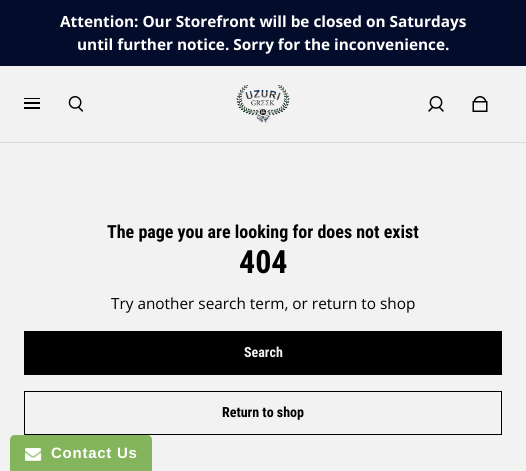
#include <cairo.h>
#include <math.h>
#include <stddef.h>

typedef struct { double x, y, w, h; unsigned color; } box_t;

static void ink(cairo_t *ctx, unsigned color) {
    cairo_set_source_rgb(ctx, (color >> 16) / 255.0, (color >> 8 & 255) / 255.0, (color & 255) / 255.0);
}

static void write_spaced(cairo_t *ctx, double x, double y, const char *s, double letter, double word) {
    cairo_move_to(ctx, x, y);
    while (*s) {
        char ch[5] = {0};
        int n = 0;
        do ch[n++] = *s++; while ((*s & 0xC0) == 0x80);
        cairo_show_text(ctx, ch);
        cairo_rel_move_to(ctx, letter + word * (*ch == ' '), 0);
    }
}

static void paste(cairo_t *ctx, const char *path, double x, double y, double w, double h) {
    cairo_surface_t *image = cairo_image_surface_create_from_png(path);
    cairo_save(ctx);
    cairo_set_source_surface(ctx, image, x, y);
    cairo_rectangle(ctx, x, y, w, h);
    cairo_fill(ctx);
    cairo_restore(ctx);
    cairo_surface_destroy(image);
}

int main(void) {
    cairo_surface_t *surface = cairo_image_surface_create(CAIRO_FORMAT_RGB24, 526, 471);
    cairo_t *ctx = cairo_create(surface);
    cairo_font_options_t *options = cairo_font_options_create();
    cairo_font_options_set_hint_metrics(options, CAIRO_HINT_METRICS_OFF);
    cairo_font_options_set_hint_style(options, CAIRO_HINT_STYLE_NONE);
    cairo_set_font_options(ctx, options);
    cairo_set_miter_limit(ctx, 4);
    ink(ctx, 0xF2F2F2);
    cairo_paint(ctx);
    ink(ctx, 0x040C2B);
    cairo_rectangle(ctx, 0, 0, 526, 66);
    cairo_fill(ctx);
    cairo_select_font_face(ctx, "Open Sans", CAIRO_FONT_SLANT_NORMAL, CAIRO_FONT_WEIGHT_BOLD);
    cairo_set_font_size(ctx, 15.35);
    ink(ctx, 0xFFFFFF);
    cairo_move_to(ctx, 60, 27);
    cairo_show_text(ctx, "Attention: Our Storefront will be closed on Saturdays");
    cairo_move_to(ctx, 77, 50);
    cairo_show_text(ctx, "until further notice. Sorry for the inconvenience.");
    {
        static const box_t items[] = {
            {0, 142, 526, 1, 0xDADADA},
            {24, 98, 16, 1, 0x000000},
            {24, 102, 16, 2, 0x000000},
            {24, 107, 16, 2, 0x000000},
        };
        for (size_t i = 0; i < sizeof items / sizeof *items; i++) {
            ink(ctx, items[i].color);
            cairo_rectangle(ctx, items[i].x, items[i].y, items[i].w, items[i].h);
            cairo_fill(ctx);
        }
    }
    paste(ctx, "media/1.png", 68, 96, 16, 16);
    paste(ctx, "media/2.png", 236, 85, 54, 38);
    paste(ctx, "media/3.png", 428, 96, 16, 16);
    paste(ctx, "media/4.png", 472, 96, 16, 16);
    cairo_select_font_face(ctx, "Roboto Condensed", CAIRO_FONT_SLANT_NORMAL, CAIRO_FONT_WEIGHT_BOLD);
    cairo_set_font_size(ctx, 18);
    cairo_move_to(ctx, 107, 238);
    cairo_show_text(ctx, "The page you are looking for does not exist");
    cairo_set_font_size(ctx, 32);
    cairo_move_to(ctx, 239, 273);
    cairo_show_text(ctx, "404");
    cairo_select_font_face(ctx, "Open Sans", CAIRO_FONT_SLANT_NORMAL, CAIRO_FONT_WEIGHT_NORMAL);
    cairo_set_font_size(ctx, 15.35);
    cairo_move_to(ctx, 111, 309);
    cairo_show_text(ctx, "Try another search term, or return to shop");
    cairo_rectangle(ctx, 24.5, 331.5, 477, 43);
    cairo_set_line_width(ctx, 1);
    cairo_stroke(ctx);
    cairo_rectangle(ctx, 25, 332, 476, 42);
    cairo_fill(ctx);
    cairo_select_font_face(ctx, "Roboto Condensed", CAIRO_FONT_SLANT_NORMAL, CAIRO_FONT_WEIGHT_BOLD);
    cairo_set_font_size(ctx, 14);
    ink(ctx, 0xF2F2F2);
    cairo_move_to(ctx, 244, 357);
    cairo_show_text(ctx, "Search");
    cairo_rectangle(ctx, 24.5, 391.5, 477, 43);
    ink(ctx, 0x000000);
    cairo_stroke(ctx);
    cairo_move_to(ctx, 222, 417);
    cairo_show_text(ctx, "Return to shop");
    ink(ctx, 0x84B45B);
    cairo_new_path(ctx);
    cairo_move_to(ctx, 15, 435);
    cairo_line_to(ctx, 147, 435);
    cairo_curve_to(ctx, 150, 435, 152, 437, 152, 440);
    cairo_line_to(ctx, 152, 471);
    cairo_line_to(ctx, 10, 471);
    cairo_line_to(ctx, 10, 440);
    cairo_curve_to(ctx, 10, 437, 12, 435, 15, 435);
    cairo_close_path(ctx);
    cairo_fill(ctx);
    paste(ctx, "media/5.png", 25, 448, 17, 13);
    cairo_select_font_face(ctx, "Liberation Sans", CAIRO_FONT_SLANT_NORMAL, CAIRO_FONT_WEIGHT_BOLD);
    cairo_set_font_size(ctx, 15);
    ink(ctx, 0xFFFFFF);
    write_spaced(ctx, 51, 458, "Contact Us", 0.75, 0);
    cairo_surface_write_to_png(surface, "image.png");
    cairo_font_options_destroy(options);
    cairo_destroy(ctx);
    cairo_surface_destroy(surface);
    return 0;
}
